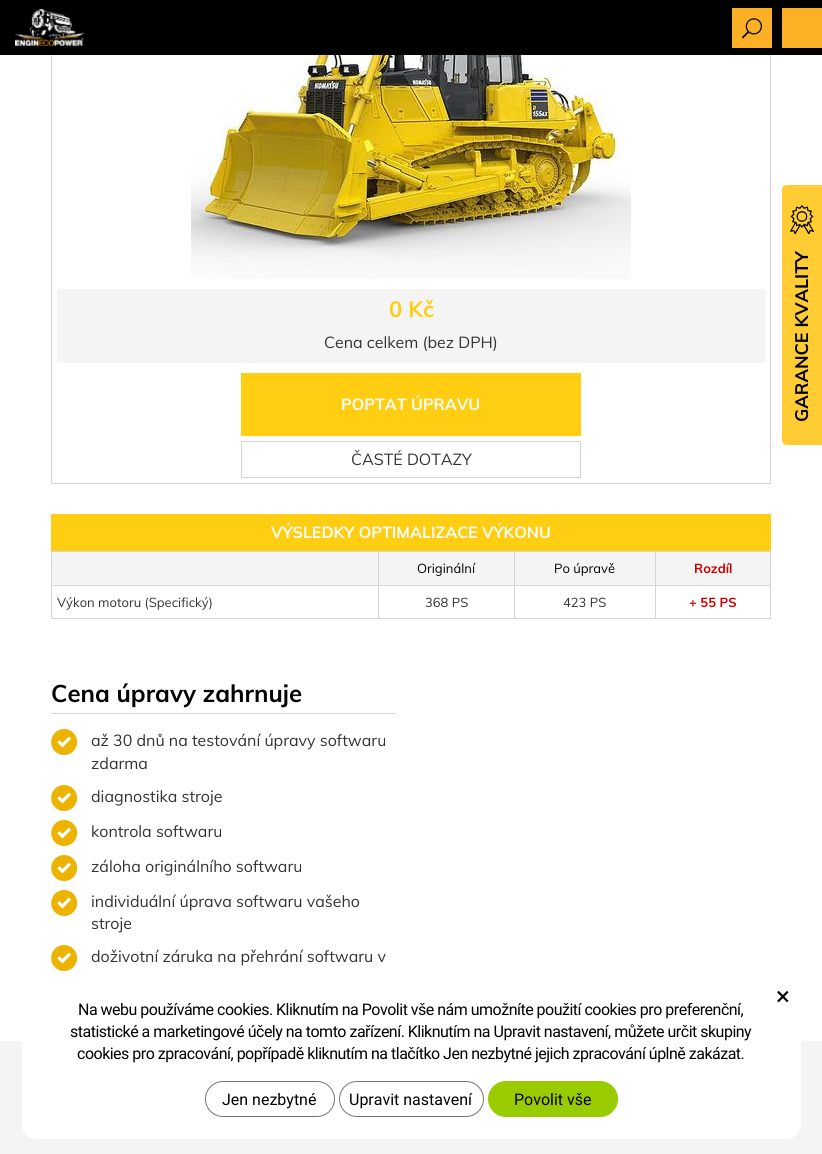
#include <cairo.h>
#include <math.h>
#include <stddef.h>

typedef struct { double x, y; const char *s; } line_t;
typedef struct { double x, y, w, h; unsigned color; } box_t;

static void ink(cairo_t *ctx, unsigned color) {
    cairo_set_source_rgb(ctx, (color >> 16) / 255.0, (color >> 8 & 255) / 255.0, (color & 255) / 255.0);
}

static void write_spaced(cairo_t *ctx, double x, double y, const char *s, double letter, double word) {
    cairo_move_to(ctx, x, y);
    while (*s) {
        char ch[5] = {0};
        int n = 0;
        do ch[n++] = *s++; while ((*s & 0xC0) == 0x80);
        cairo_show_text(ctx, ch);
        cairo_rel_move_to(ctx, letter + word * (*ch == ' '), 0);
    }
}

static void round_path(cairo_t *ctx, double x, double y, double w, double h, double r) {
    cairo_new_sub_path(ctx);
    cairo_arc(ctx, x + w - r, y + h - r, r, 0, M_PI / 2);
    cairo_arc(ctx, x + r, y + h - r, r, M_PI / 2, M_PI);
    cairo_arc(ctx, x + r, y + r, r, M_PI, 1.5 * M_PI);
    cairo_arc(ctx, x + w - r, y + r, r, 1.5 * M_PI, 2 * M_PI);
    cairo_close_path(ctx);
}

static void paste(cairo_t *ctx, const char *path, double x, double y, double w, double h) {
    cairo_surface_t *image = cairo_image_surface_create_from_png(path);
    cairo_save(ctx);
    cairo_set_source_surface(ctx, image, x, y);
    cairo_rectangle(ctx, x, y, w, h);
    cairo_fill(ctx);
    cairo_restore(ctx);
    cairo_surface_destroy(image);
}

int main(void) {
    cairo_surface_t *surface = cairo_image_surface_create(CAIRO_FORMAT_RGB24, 822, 1154);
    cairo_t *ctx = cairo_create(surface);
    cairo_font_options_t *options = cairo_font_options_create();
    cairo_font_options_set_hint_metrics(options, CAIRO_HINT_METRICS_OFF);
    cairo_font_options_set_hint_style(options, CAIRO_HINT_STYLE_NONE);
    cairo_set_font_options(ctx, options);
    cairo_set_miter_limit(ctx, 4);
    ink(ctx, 0xF4F4F4);
    cairo_paint(ctx);
    ink(ctx, 0xFFFFFF);
    cairo_rectangle(ctx, 0, 55, 822, 986);
    cairo_fill(ctx);
    cairo_rectangle(ctx, 51.5, -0.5, 719, 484);
    ink(ctx, 0xD5D5D5);
    cairo_set_line_width(ctx, 1);
    cairo_stroke(ctx);
    ink(ctx, 0x000000);
    cairo_rectangle(ctx, 0, 0, 822, 55);
    cairo_fill(ctx);
    paste(ctx, "media/1.png", 15, 9, 70, 37);
    ink(ctx, 0xFCB026);
    cairo_rectangle(ctx, 732, 8, 40, 40);
    cairo_fill(ctx);
    paste(ctx, "media/2.png", 742, 18, 20, 21);
    cairo_rectangle(ctx, 782, 8, 40, 40);
    cairo_fill(ctx);
    paste(ctx, "media/3.png", 191, 55, 440, 224);
    ink(ctx, 0xF4F4F4);
    cairo_rectangle(ctx, 57, 289, 708, 74);
    cairo_fill(ctx);
    cairo_select_font_face(ctx, "Muli", CAIRO_FONT_SLANT_NORMAL, CAIRO_FONT_WEIGHT_BOLD);
    cairo_set_font_size(ctx, 22);
    ink(ctx, 0xFFCD11);
    cairo_move_to(ctx, 389, 317);
    cairo_show_text(ctx, "0 Kč");
    cairo_select_font_face(ctx, "Muli", CAIRO_FONT_SLANT_NORMAL, CAIRO_FONT_WEIGHT_NORMAL);
    cairo_set_font_size(ctx, 16);
    ink(ctx, 0x333333);
    cairo_move_to(ctx, 324, 348);
    cairo_show_text(ctx, "Cena celkem (bez DPH)");
    ink(ctx, 0xFFCD11);
    cairo_rectangle(ctx, 241, 373, 340, 63);
    cairo_fill(ctx);
    cairo_select_font_face(ctx, "Muli", CAIRO_FONT_SLANT_NORMAL, CAIRO_FONT_WEIGHT_BOLD);
    ink(ctx, 0xFFFFFF);
    cairo_move_to(ctx, 341, 410);
    cairo_show_text(ctx, "POPTAT ÚPRAVU");
    cairo_rectangle(ctx, 241.5, 441.5, 339, 36);
    ink(ctx, 0xD5D5D5);
    cairo_stroke(ctx);
    cairo_select_font_face(ctx, "Muli", CAIRO_FONT_SLANT_NORMAL, CAIRO_FONT_WEIGHT_NORMAL);
    ink(ctx, 0x333333);
    cairo_move_to(ctx, 351, 465);
    cairo_show_text(ctx, "ČASTÉ DOTAZY");
    ink(ctx, 0xFFCD11);
    cairo_rectangle(ctx, 51, 514, 720, 37);
    cairo_fill(ctx);
    cairo_select_font_face(ctx, "Muli", CAIRO_FONT_SLANT_NORMAL, CAIRO_FONT_WEIGHT_BOLD);
    ink(ctx, 0xFFFFFF);
    cairo_move_to(ctx, 271, 538);
    cairo_show_text(ctx, "VÝSLEDKY OPTIMALIZACE VÝKONU");
    {
        static const box_t items[] = {
            {52, 552, 326, 33, 0xF4F4F4},
            {655, 551, 116, 1, 0xD5D5D5},
            {655, 585, 116, 1, 0xD5D5D5},
            {770, 585, 1, 34, 0xD5D5D5},
            {655, 618, 116, 1, 0xD5D5D5},
            {655, 585, 1, 34, 0xD5D5D5},
            {514, 585, 142, 1, 0xD5D5D5},
            {655, 551, 1, 35, 0xD5D5D5},
            {514, 551, 142, 1, 0xD5D5D5},
            {514, 618, 142, 1, 0xD5D5D5},
            {514, 585, 1, 34, 0xD5D5D5},
            {378, 585, 137, 1, 0xD5D5D5},
            {514, 551, 1, 35, 0xD5D5D5},
            {378, 551, 137, 1, 0xD5D5D5},
            {378, 618, 137, 1, 0xD5D5D5},
            {378, 585, 1, 34, 0xD5D5D5},
            {51, 585, 328, 1, 0xD5D5D5},
            {378, 551, 1, 35, 0xD5D5D5},
            {51, 551, 328, 1, 0xD5D5D5},
            {51, 618, 328, 1, 0xD5D5D5},
            {51, 585, 1, 34, 0xD5D5D5},
            {51, 551, 1, 35, 0xD5D5D5},
            {379, 552, 135, 33, 0xF4F4F4},
        };
        for (size_t i = 0; i < sizeof items / sizeof *items; i++) {
            ink(ctx, items[i].color);
            cairo_rectangle(ctx, items[i].x, items[i].y, items[i].w, items[i].h);
            cairo_fill(ctx);
        }
    }
    cairo_select_font_face(ctx, "Muli", CAIRO_FONT_SLANT_NORMAL, CAIRO_FONT_WEIGHT_NORMAL);
    cairo_set_font_size(ctx, 13);
    ink(ctx, 0x000000);
    cairo_move_to(ctx, 417, 573);
    cairo_show_text(ctx, "Originální");
    ink(ctx, 0xF4F4F4);
    cairo_rectangle(ctx, 515, 552, 140, 33);
    cairo_fill(ctx);
    ink(ctx, 0x000000);
    cairo_move_to(ctx, 554, 573);
    cairo_show_text(ctx, "Po úpravě");
    ink(ctx, 0xF4F4F4);
    cairo_rectangle(ctx, 656, 552, 114, 33);
    cairo_fill(ctx);
    ink(ctx, 0xD5D5D5);
    cairo_rectangle(ctx, 770, 551, 1, 35);
    cairo_fill(ctx);
    cairo_select_font_face(ctx, "Muli", CAIRO_FONT_SLANT_NORMAL, CAIRO_FONT_WEIGHT_BOLD);
    ink(ctx, 0xCC0000);
    cairo_move_to(ctx, 694, 573);
    cairo_show_text(ctx, "Rozdíl");
    cairo_select_font_face(ctx, "Muli", CAIRO_FONT_SLANT_NORMAL, CAIRO_FONT_WEIGHT_NORMAL);
    ink(ctx, 0x333333);
    {
        static const line_t items[] = {
            {57, 607, "Výkon motoru (Specifický)"},
            {425, 607, "368 PS"},
            {563, 607, "423 PS"},
        };
        for (size_t i = 0; i < sizeof items / sizeof *items; i++) {
            cairo_move_to(ctx, items[i].x, items[i].y);
            cairo_show_text(ctx, items[i].s);
        }
    }
    cairo_select_font_face(ctx, "Muli", CAIRO_FONT_SLANT_NORMAL, CAIRO_FONT_WEIGHT_BOLD);
    ink(ctx, 0xCC0000);
    cairo_move_to(ctx, 689, 607);
    cairo_show_text(ctx, "+ 55 PS");
    ink(ctx, 0xD5D5D5);
    cairo_rectangle(ctx, 51, 713, 345, 1);
    cairo_fill(ctx);
    cairo_set_font_size(ctx, 24);
    ink(ctx, 0x000000);
    cairo_move_to(ctx, 51, 702);
    cairo_show_text(ctx, "Cena úpravy zahrnuje");
    paste(ctx, "media/4.png", 51, 729, 27, 26);
    cairo_select_font_face(ctx, "Muli", CAIRO_FONT_SLANT_NORMAL, CAIRO_FONT_WEIGHT_NORMAL);
    cairo_set_font_size(ctx, 16);
    ink(ctx, 0x333333);
    cairo_move_to(ctx, 91, 746);
    cairo_show_text(ctx, "až 30 dnů na testování úpravy softwaru");
    cairo_move_to(ctx, 91, 769);
    cairo_show_text(ctx, "zdarma");
    paste(ctx, "media/4.png", 51, 785, 27, 26);
    cairo_move_to(ctx, 91, 802);
    cairo_show_text(ctx, "diagnostika stroje");
    paste(ctx, "media/4.png", 51, 820, 27, 26);
    cairo_move_to(ctx, 91, 837);
    cairo_show_text(ctx, "kontrola softwaru");
    paste(ctx, "media/4.png", 51, 855, 27, 26);
    cairo_move_to(ctx, 91, 872);
    cairo_show_text(ctx, "záloha originálního softwaru");
    paste(ctx, "media/4.png", 51, 890, 27, 26);
    cairo_move_to(ctx, 91, 907);
    cairo_show_text(ctx, "individuální úprava softwaru vašeho");
    cairo_move_to(ctx, 91, 929);
    cairo_show_text(ctx, "stroje");
    paste(ctx, "media/4.png", 51, 945, 27, 26);
    cairo_move_to(ctx, 91, 962);
    cairo_show_text(ctx, "doživotní záruka na přehrání softwaru v");
    ink(ctx, 0xFFCC33);
    cairo_new_path(ctx);
    cairo_move_to(ctx, 787, 185);
    cairo_line_to(ctx, 822, 185);
    cairo_line_to(ctx, 822, 445);
    cairo_line_to(ctx, 787, 445);
    cairo_curve_to(ctx, 784, 445, 782, 443, 782, 440);
    cairo_line_to(ctx, 782, 190);
    cairo_curve_to(ctx, 782, 187, 784, 185, 787, 185);
    cairo_close_path(ctx);
    cairo_fill(ctx);
    paste(ctx, "media/5.png", 790, 205, 24, 29);
    cairo_select_font_face(ctx, "Muli", CAIRO_FONT_SLANT_NORMAL, CAIRO_FONT_WEIGHT_BOLD);
    cairo_set_font_size(ctx, 18);
    ink(ctx, 0x000000);
    cairo_save(ctx);
    cairo_translate(ctx, 808, 422);
    cairo_rotate(ctx, -90 * M_PI / 180);
    cairo_move_to(ctx, 0, 0);
    cairo_show_text(ctx, "GARANCE KVALITY");
    cairo_restore(ctx);
    ink(ctx, 0xFFFFFF);
    round_path(ctx, 22, 978, 779, 161, 14);
    cairo_fill(ctx);
    cairo_select_font_face(ctx, "Roboto", CAIRO_FONT_SLANT_NORMAL, CAIRO_FONT_WEIGHT_NORMAL);
    cairo_set_font_size(ctx, 26);
    ink(ctx, 0x000000);
    cairo_move_to(ctx, 776, 1005);
    cairo_show_text(ctx, "×");
    cairo_set_font_size(ctx, 16);
    {
        static const line_t items[] = {
            {78, 1015, "Na webu používáme cookies. Kliknutím na Povolit vše nám umožníte použití cookies pro preferenční,"},
            {70, 1037, "statistické a marketingové účely na tomto zařízení. Kliknutím na Upravit nastavení, můžete určit skupiny"},
            {77, 1059, "cookies pro zpracování, popřípadě kliknutím na tlačítko Jen nezbytné jejich zpracování úplně zakázat."},
        };
        for (size_t i = 0; i < sizeof items / sizeof *items; i++) {
            write_spaced(ctx, items[i].x, items[i].y, items[i].s, -0.5, 0);
        }
    }
    round_path(ctx, 205.5, 1081.5, 129, 35, 17.5);
    ink(ctx, 0x767676);
    cairo_stroke(ctx);
    ink(ctx, 0x000000);
    cairo_move_to(ctx, 222, 1105);
    cairo_show_text(ctx, "Jen nezbytné");
    round_path(ctx, 339.5, 1081.5, 144, 35, 17.5);
    ink(ctx, 0x767676);
    cairo_stroke(ctx);
    ink(ctx, 0x000000);
    cairo_move_to(ctx, 349, 1105);
    cairo_show_text(ctx, "Upravit nastavení");
    ink(ctx, 0x99CC00);
    round_path(ctx, 488.5, 1081.5, 129, 35, 17.5);
    cairo_fill_preserve(ctx);
    cairo_stroke(ctx);
    ink(ctx, 0x000000);
    cairo_move_to(ctx, 514, 1105);
    cairo_show_text(ctx, "Povolit vše");
    cairo_surface_write_to_png(surface, "image.png");
    cairo_font_options_destroy(options);
    cairo_destroy(ctx);
    cairo_surface_destroy(surface);
    return 0;
}
